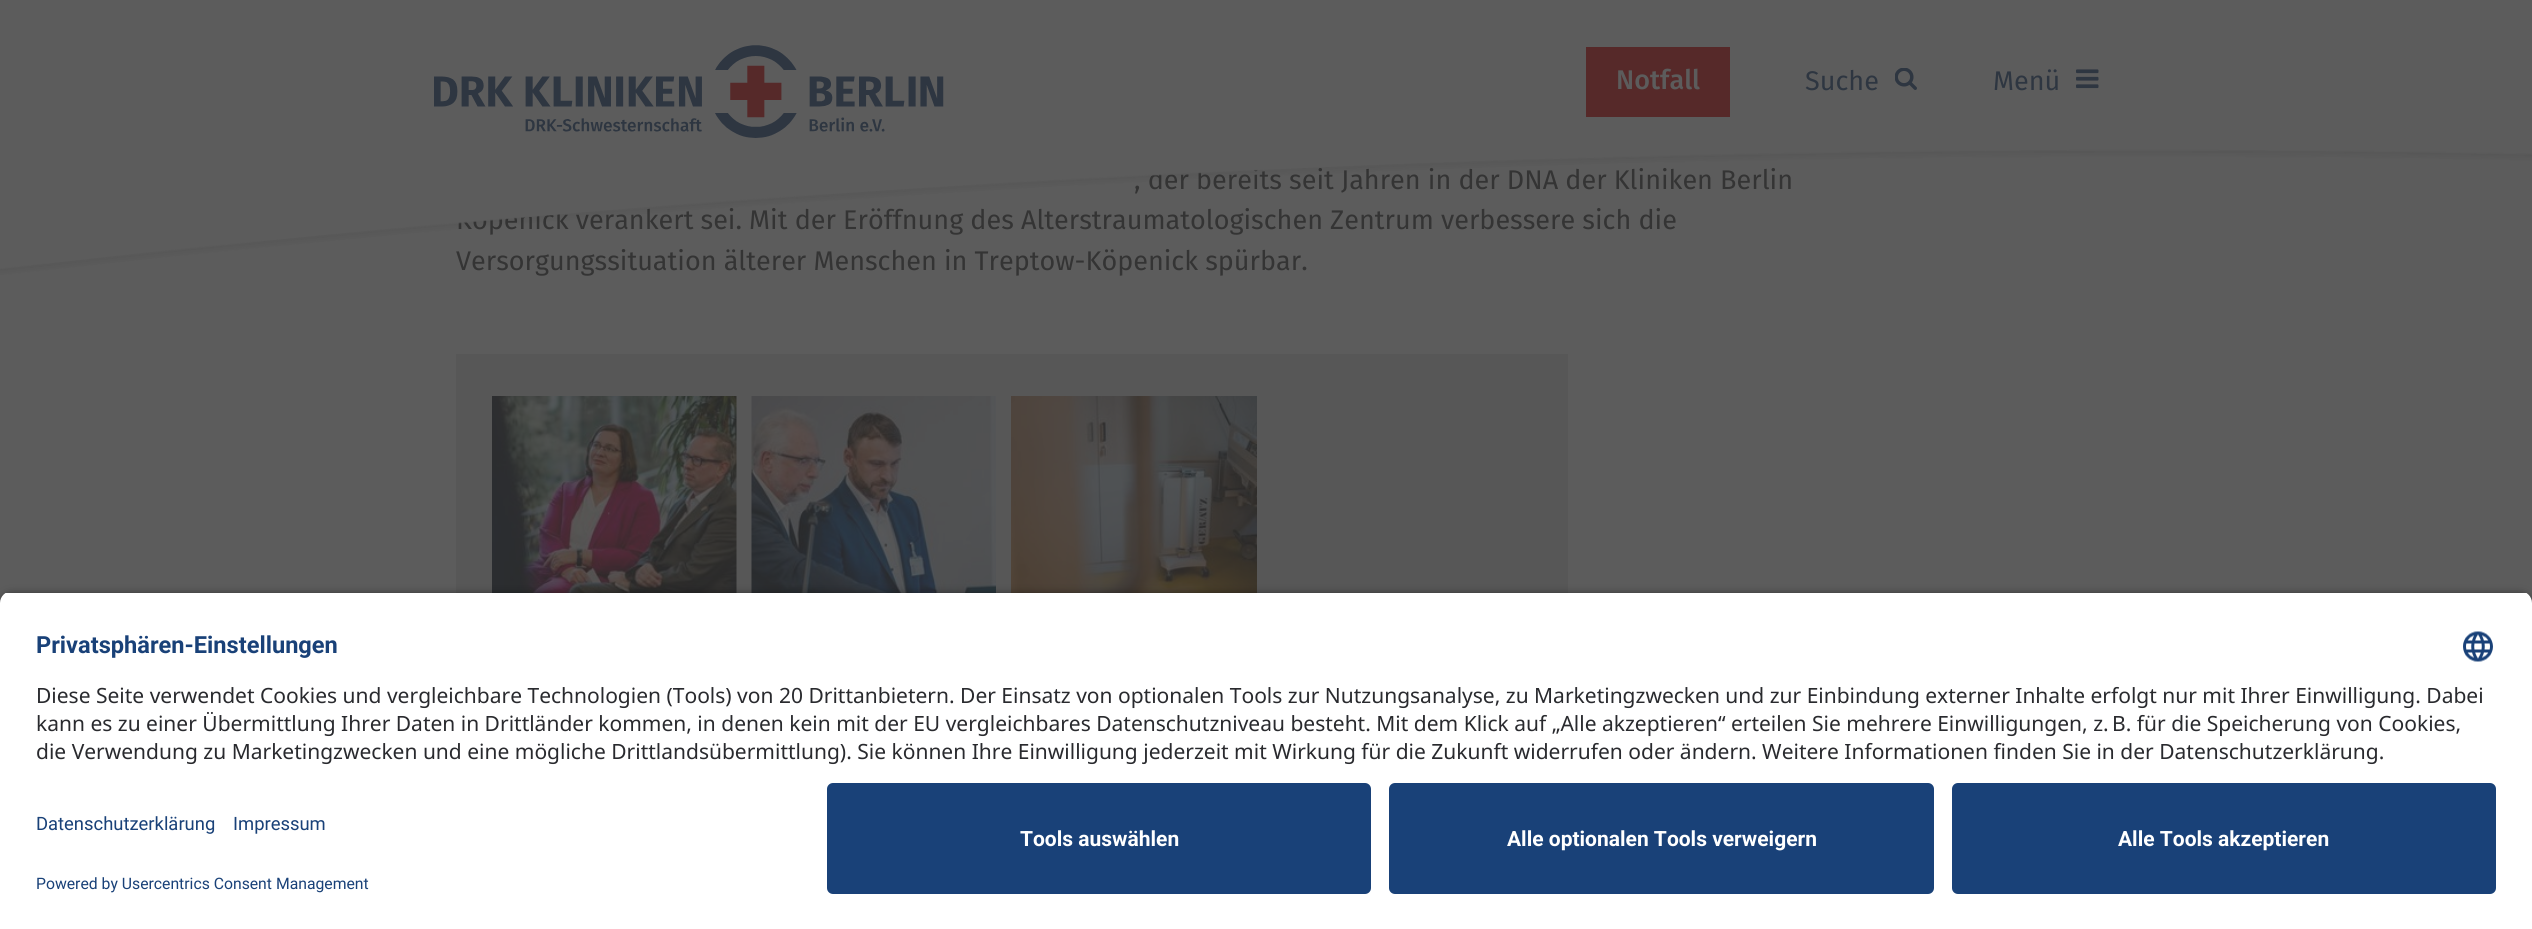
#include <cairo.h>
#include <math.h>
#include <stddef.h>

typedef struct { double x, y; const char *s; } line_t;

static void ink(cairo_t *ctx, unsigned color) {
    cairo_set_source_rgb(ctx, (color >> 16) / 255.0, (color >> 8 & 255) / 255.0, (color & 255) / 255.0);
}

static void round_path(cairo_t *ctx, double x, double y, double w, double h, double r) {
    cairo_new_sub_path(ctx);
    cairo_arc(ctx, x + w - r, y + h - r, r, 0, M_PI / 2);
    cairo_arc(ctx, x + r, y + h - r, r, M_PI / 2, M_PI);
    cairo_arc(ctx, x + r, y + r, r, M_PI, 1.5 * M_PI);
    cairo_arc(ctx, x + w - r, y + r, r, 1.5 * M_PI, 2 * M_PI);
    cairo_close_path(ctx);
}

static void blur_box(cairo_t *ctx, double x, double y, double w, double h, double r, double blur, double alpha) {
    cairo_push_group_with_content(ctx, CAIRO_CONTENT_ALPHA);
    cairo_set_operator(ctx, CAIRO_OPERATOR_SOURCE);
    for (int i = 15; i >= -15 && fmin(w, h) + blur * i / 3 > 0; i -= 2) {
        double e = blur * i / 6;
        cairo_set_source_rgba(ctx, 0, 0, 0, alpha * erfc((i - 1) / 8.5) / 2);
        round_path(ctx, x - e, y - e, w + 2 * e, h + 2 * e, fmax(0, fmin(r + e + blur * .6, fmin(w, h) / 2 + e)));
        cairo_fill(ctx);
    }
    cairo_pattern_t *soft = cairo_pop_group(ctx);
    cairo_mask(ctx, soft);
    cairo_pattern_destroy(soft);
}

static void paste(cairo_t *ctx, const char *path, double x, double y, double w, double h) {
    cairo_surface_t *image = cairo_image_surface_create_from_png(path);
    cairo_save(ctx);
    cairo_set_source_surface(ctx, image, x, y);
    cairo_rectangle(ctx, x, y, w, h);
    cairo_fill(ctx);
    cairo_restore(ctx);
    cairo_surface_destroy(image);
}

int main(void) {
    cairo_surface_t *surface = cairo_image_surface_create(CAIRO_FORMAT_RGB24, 2532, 929);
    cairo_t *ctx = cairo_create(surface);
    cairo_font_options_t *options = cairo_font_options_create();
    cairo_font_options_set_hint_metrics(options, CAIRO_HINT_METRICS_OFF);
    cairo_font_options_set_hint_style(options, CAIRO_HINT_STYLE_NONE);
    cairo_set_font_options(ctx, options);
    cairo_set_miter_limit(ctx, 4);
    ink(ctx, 0x5C5C5C);
    cairo_paint(ctx);
    paste(ctx, "media/1.png", 434, 45, 510, 93);
    ink(ctx, 0x562929);
    cairo_rectangle(ctx, 1586, 47, 144, 70);
    cairo_fill(ctx);
    cairo_select_font_face(ctx, "Fira Sans Medium", CAIRO_FONT_SLANT_NORMAL, CAIRO_FONT_WEIGHT_NORMAL);
    cairo_set_font_size(ctx, 27);
    ink(ctx, 0x5C5C5C);
    cairo_move_to(ctx, 1616, 89);
    cairo_show_text(ctx, "Notfall");
    cairo_select_font_face(ctx, "Fira Sans", CAIRO_FONT_SLANT_NORMAL, CAIRO_FONT_WEIGHT_NORMAL);
    ink(ctx, 0x2E3641);
    cairo_move_to(ctx, 1805, 90);
    cairo_show_text(ctx, "Suche");
    paste(ctx, "media/2.png", 1895, 68, 22, 22);
    cairo_move_to(ctx, 1993, 90);
    cairo_show_text(ctx, "Menü");
    paste(ctx, "media/3.png", 2076, 69, 23, 20);
    ink(ctx, 0x343434);
    {
        static const line_t items[] = {
            {1134, 189, ", der bereits seit Jahren in der DNA der Kliniken Berlin"},
            {456, 229, "Köpenick verankert sei. Mit der Eröffnung des Alterstraumatologischen Zentrum verbessere sich die"},
            {456, 270, "Versorgungssituation älterer Menschen in Treptow-Köpenick spürbar."},
        };
        for (size_t i = 0; i < sizeof items / sizeof *items; i++) {
            cairo_move_to(ctx, items[i].x, items[i].y);
            cairo_show_text(ctx, items[i].s);
        }
    }
    paste(ctx, "media/4.png", 0, 147, 2532, 128);
    ink(ctx, 0x575757);
    cairo_rectangle(ctx, 456, 354, 1112, 239);
    cairo_fill(ctx);
    paste(ctx, "media/5.png", 492, 396, 245, 197);
    paste(ctx, "media/6.png", 751, 396, 245, 197);
    paste(ctx, "media/7.png", 1011, 396, 246, 197);
    ink(ctx, 0x000000);
    blur_box(ctx, 0, 596, 2532, 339, 12, 5, 0.8);
    cairo_save(ctx);
    cairo_new_path(ctx);
    cairo_move_to(ctx, 12, 591);
    cairo_line_to(ctx, 2520, 591);
    cairo_curve_to(ctx, 2526.5, 591, 2532, 596.5, 2532, 603);
    cairo_line_to(ctx, 2532, 771);
    cairo_line_to(ctx, 0, 771);
    cairo_line_to(ctx, 0, 603);
    cairo_curve_to(ctx, 0, 596.5, 5.5, 591, 12, 591);
    cairo_close_path(ctx);
    cairo_clip(ctx);
    ink(ctx, 0xFFFFFF);
    cairo_rectangle(ctx, 0, 593, 2532, 178);
    cairo_fill(ctx);
    cairo_restore(ctx);
    cairo_select_font_face(ctx, "Roboto", CAIRO_FONT_SLANT_NORMAL, CAIRO_FONT_WEIGHT_BOLD);
    cairo_set_font_size(ctx, 23.6);
    ink(ctx, 0x194178);
    cairo_move_to(ctx, 36, 653);
    cairo_show_text(ctx, "Privatsphären-Einstellungen");
    paste(ctx, "media/8.png", 2463, 631, 30, 31);
    cairo_select_font_face(ctx, "Noto Sans", CAIRO_FONT_SLANT_NORMAL, CAIRO_FONT_WEIGHT_NORMAL);
    cairo_set_font_size(ctx, 21);
    ink(ctx, 0x292A2E);
    {
        static const line_t items[] = {
            {36, 703, "Diese Seite verwendet Cookies und vergleichbare Technologien (Tools) von 20 Drittanbietern. Der Einsatz von optionalen Tools zur Nutzungsanalyse, zu Marketingzwecken und zur Einbindung externer Inhalte erfolgt nur mit Ihrer Einwilligung. Dabei"},
            {36, 731, "kann es zu einer Übermittlung Ihrer Daten in Drittländer kommen, in denen kein mit der EU vergleichbares Datenschutzniveau besteht. Mit dem Klick auf „Alle akzeptieren“ erteilen Sie mehrere Einwilligungen, z. B. für die Speicherung von Cookies,"},
            {36, 759, "die Verwendung zu Marketingzwecken und eine mögliche Drittlandsübermittlung). Sie können Ihre Einwilligung jederzeit mit Wirkung für die Zukunft widerrufen oder ändern. Weitere Informationen finden Sie in der Datenschutzerklärung."},
        };
        for (size_t i = 0; i < sizeof items / sizeof *items; i++) {
            cairo_move_to(ctx, items[i].x, items[i].y);
            cairo_show_text(ctx, items[i].s);
        }
    }
    ink(ctx, 0xFFFFFF);
    cairo_rectangle(ctx, 0, 771, 2532, 158);
    cairo_fill(ctx);
    cairo_select_font_face(ctx, "Roboto", CAIRO_FONT_SLANT_NORMAL, CAIRO_FONT_WEIGHT_NORMAL);
    cairo_set_font_size(ctx, 18.4);
    ink(ctx, 0x194178);
    cairo_move_to(ctx, 36, 830);
    cairo_show_text(ctx, "Datenschutzerklärung");
    cairo_move_to(ctx, 233, 830);
    cairo_show_text(ctx, "Impressum");
    cairo_set_font_size(ctx, 15.75);
    cairo_move_to(ctx, 36, 889);
    cairo_show_text(ctx, "Powered by Usercentrics Consent Management");
    round_path(ctx, 827, 783, 544, 111, 6);
    cairo_fill(ctx);
    cairo_select_font_face(ctx, "Roboto", CAIRO_FONT_SLANT_NORMAL, CAIRO_FONT_WEIGHT_BOLD);
    cairo_set_font_size(ctx, 21);
    ink(ctx, 0xFFFFFF);
    cairo_move_to(ctx, 1020, 846);
    cairo_show_text(ctx, "Tools auswählen");
    ink(ctx, 0x194178);
    round_path(ctx, 1389, 783, 545, 111, 6);
    cairo_fill(ctx);
    ink(ctx, 0xFFFFFF);
    cairo_move_to(ctx, 1507, 846);
    cairo_show_text(ctx, "Alle optionalen Tools verweigern");
    ink(ctx, 0x194178);
    round_path(ctx, 1952, 783, 544, 111, 6);
    cairo_fill(ctx);
    ink(ctx, 0xFFFFFF);
    cairo_move_to(ctx, 2118, 846);
    cairo_show_text(ctx, "Alle Tools akzeptieren");
    cairo_surface_write_to_png(surface, "image.png");
    cairo_font_options_destroy(options);
    cairo_destroy(ctx);
    cairo_surface_destroy(surface);
    return 0;
}
